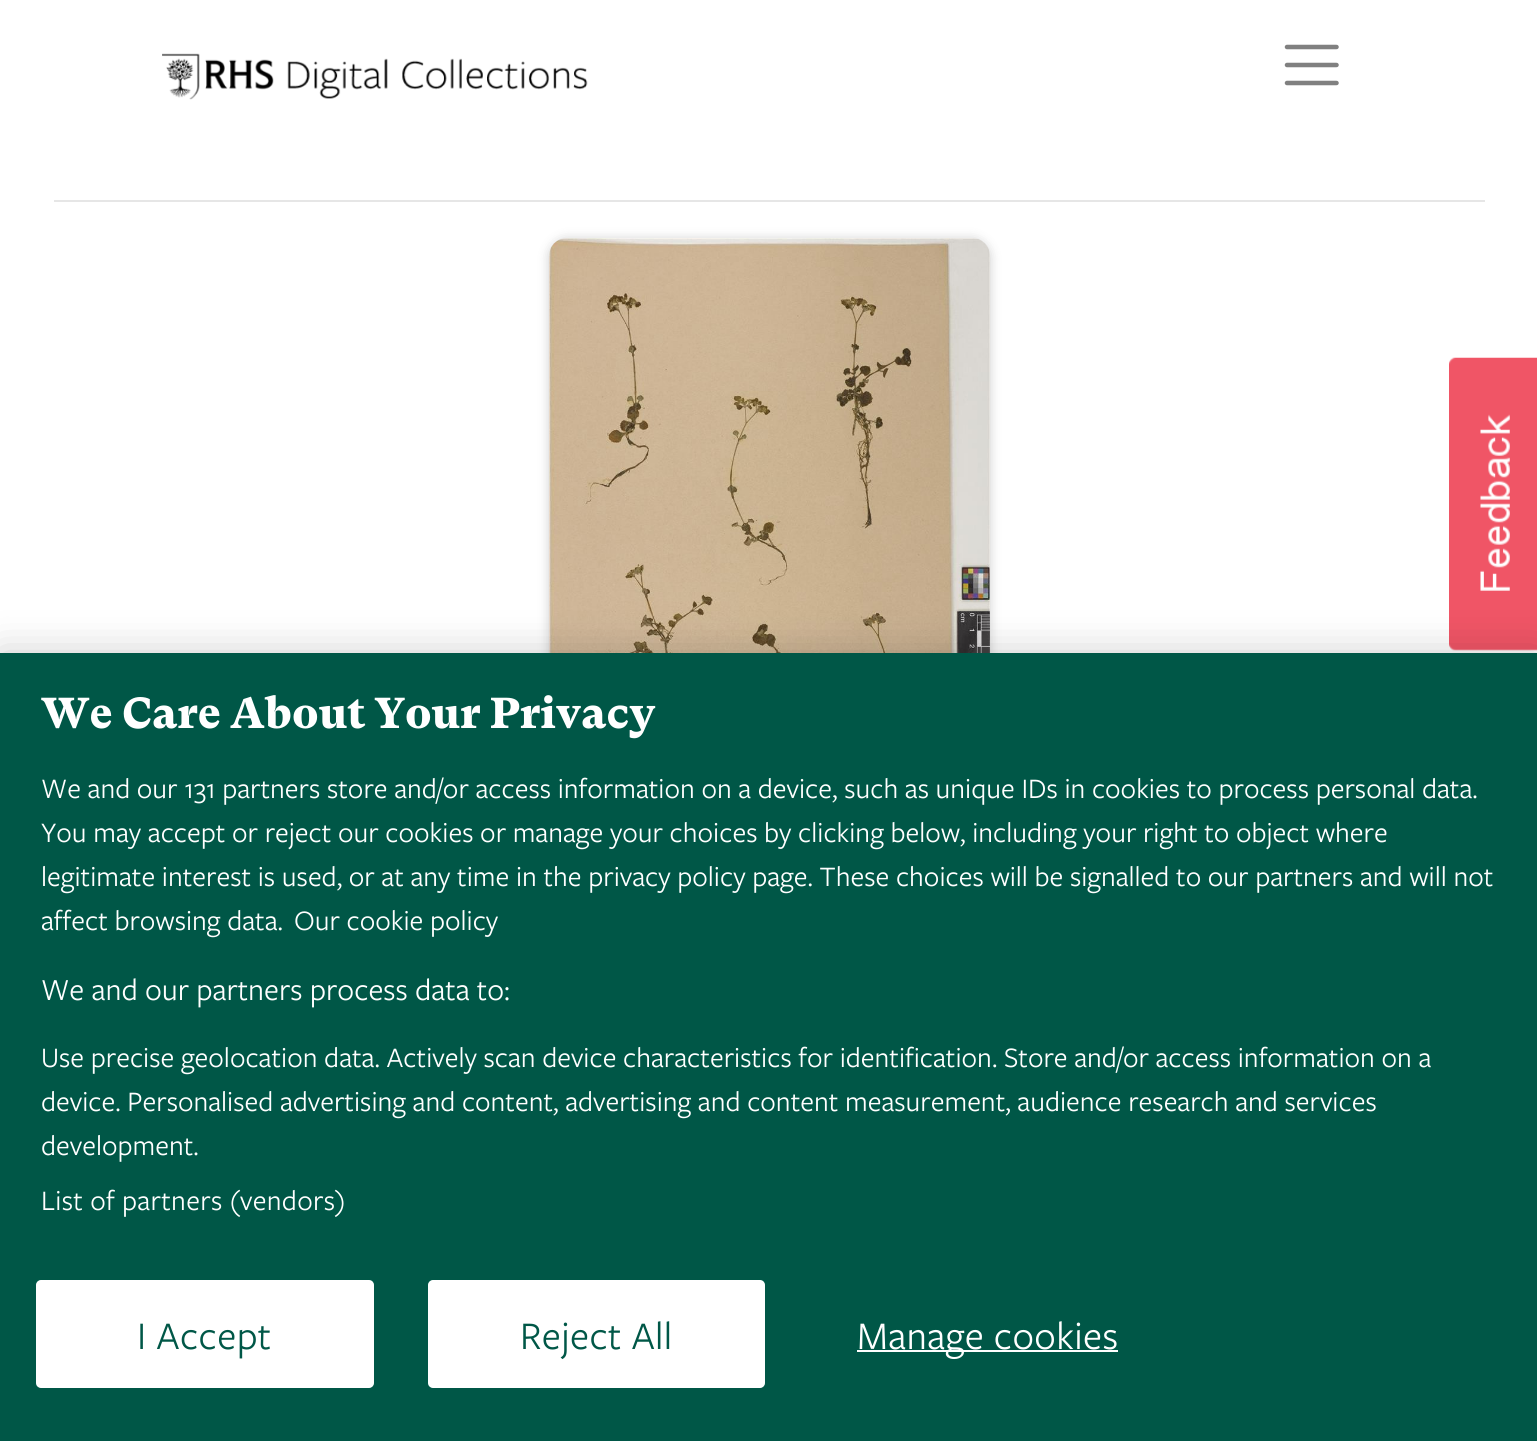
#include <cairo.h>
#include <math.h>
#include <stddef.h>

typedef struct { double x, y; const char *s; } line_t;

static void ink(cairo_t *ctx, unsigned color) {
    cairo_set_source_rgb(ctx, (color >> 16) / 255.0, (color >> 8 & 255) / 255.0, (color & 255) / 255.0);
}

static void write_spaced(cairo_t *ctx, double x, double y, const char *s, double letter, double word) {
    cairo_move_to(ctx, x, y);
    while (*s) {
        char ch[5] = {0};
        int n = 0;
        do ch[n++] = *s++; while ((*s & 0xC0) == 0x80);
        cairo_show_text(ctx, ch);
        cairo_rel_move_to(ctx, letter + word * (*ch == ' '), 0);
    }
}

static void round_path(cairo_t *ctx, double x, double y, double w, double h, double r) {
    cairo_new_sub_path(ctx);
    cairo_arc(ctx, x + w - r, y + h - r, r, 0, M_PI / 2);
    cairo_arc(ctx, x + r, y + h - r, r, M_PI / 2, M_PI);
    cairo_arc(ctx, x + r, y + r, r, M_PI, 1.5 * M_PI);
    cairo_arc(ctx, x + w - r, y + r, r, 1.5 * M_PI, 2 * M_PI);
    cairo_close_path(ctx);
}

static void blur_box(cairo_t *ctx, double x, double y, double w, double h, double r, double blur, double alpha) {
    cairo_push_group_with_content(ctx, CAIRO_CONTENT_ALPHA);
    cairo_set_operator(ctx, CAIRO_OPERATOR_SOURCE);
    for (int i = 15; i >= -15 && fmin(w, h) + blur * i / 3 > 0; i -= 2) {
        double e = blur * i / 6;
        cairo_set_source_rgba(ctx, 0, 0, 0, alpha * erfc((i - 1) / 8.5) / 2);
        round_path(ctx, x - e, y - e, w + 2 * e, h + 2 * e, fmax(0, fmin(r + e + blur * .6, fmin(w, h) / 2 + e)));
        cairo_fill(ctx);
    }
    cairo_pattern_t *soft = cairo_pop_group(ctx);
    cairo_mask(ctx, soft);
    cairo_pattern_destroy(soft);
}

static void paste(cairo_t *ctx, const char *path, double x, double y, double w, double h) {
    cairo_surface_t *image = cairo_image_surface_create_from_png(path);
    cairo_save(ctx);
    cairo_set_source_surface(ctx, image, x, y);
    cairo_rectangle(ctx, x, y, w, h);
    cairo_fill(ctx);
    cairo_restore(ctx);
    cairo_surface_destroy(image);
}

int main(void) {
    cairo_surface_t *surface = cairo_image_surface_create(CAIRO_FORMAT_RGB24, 1537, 1441);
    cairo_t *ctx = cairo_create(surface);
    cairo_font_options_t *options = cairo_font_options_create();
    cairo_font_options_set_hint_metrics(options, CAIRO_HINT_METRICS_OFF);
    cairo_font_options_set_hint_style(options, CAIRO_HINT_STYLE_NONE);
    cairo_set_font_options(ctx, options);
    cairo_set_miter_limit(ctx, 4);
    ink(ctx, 0xFFFFFF);
    cairo_paint(ctx);
    paste(ctx, "media/1.png", 162, 53, 426, 47);
    cairo_new_path(ctx);
    cairo_move_to(ctx, 1287, 47);
    cairo_line_to(ctx, 1336.5, 47);
    cairo_move_to(ctx, 1287, 65);
    cairo_line_to(ctx, 1336.5, 65);
    cairo_move_to(ctx, 1287, 83);
    cairo_line_to(ctx, 1336.5, 83);
    ink(ctx, 0x808080);
    cairo_set_line_width(ctx, 4.5);
    cairo_set_line_cap(ctx, CAIRO_LINE_CAP_ROUND);
    cairo_stroke(ctx);
    ink(ctx, 0xE6E6E6);
    cairo_rectangle(ctx, 54, 200, 1431, 2);
    cairo_fill(ctx);
    ink(ctx, 0x000000);
    blur_box(ctx, 549, 239, 441, 612, 18, 5.5, 0.2);
    paste(ctx, "media/2.png", 549, 238, 441, 415);
    paste(ctx, "media/3.png", 1449, 357, 88, 294);
    blur_box(ctx, 0, 653, 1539, 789, 0, 20, 0.2);
    ink(ctx, 0x005747);
    cairo_rectangle(ctx, 0, 653, 1537, 788);
    cairo_fill(ctx);
    cairo_select_font_face(ctx, "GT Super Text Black", CAIRO_FONT_SLANT_NORMAL, CAIRO_FONT_WEIGHT_NORMAL);
    cairo_set_font_size(ctx, 43.25);
    ink(ctx, 0xFFFFFF);
    cairo_move_to(ctx, 41, 728);
    cairo_show_text(ctx, "We Care About Your Privacy");
    cairo_select_font_face(ctx, "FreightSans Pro", CAIRO_FONT_SLANT_NORMAL, CAIRO_FONT_WEIGHT_NORMAL);
    cairo_set_font_size(ctx, 29.25);
    {
        static const line_t items[] = {
            {41, 798, "We and our 131 partners store and/or access information on a device, such as unique IDs in cookies to process personal data."},
            {41, 842, "You may accept or reject our cookies or manage your choices by clicking below, including your right to object where"},
            {41, 886, "legitimate interest is used, or at any time in the privacy policy page. These choices will be signalled to our partners and will not"},
            {41, 930, "affect browsing data."},
            {294, 930, "Our cookie policy"},
        };
        for (size_t i = 0; i < sizeof items / sizeof *items; i++) {
            cairo_move_to(ctx, items[i].x, items[i].y);
            cairo_show_text(ctx, items[i].s);
        }
    }
    cairo_set_font_size(ctx, 31.7);
    cairo_move_to(ctx, 41, 1000);
    cairo_show_text(ctx, "We and our partners process data to:");
    cairo_set_font_size(ctx, 29.25);
    {
        static const line_t items[] = {
            {41, 1067, "Use precise geolocation data. Actively scan device characteristics for identification. Store and/or access information on a"},
            {41, 1111, "device. Personalised advertising and content, advertising and content measurement, audience research and services"},
            {41, 1155, "development."},
        };
        for (size_t i = 0; i < sizeof items / sizeof *items; i++) {
            cairo_move_to(ctx, items[i].x, items[i].y);
            cairo_show_text(ctx, items[i].s);
        }
    }
    write_spaced(ctx, 41, 1210, "List of partners (vendors)", 0.3, 0);
    round_path(ctx, 37, 1281, 336, 106, 4);
    cairo_fill_preserve(ctx);
    cairo_set_line_width(ctx, 2);
    cairo_set_line_cap(ctx, CAIRO_LINE_CAP_BUTT);
    cairo_stroke(ctx);
    cairo_set_font_size(ctx, 40.5);
    ink(ctx, 0x005747);
    write_spaced(ctx, 137, 1349, "I Accept", 0.4, 0);
    ink(ctx, 0xFFFFFF);
    round_path(ctx, 429, 1281, 335, 106, 4);
    cairo_fill_preserve(ctx);
    cairo_stroke(ctx);
    ink(ctx, 0x005747);
    write_spaced(ctx, 520, 1349, "Reject All", 0.4, 0);
    ink(ctx, 0xFFFFFF);
    cairo_rectangle(ctx, 857, 1350, 261, 2);
    cairo_fill(ctx);
    write_spaced(ctx, 857, 1349, "Manage cookies", 0.4, 0);
    cairo_surface_write_to_png(surface, "image.png");
    cairo_font_options_destroy(options);
    cairo_destroy(ctx);
    cairo_surface_destroy(surface);
    return 0;
}
